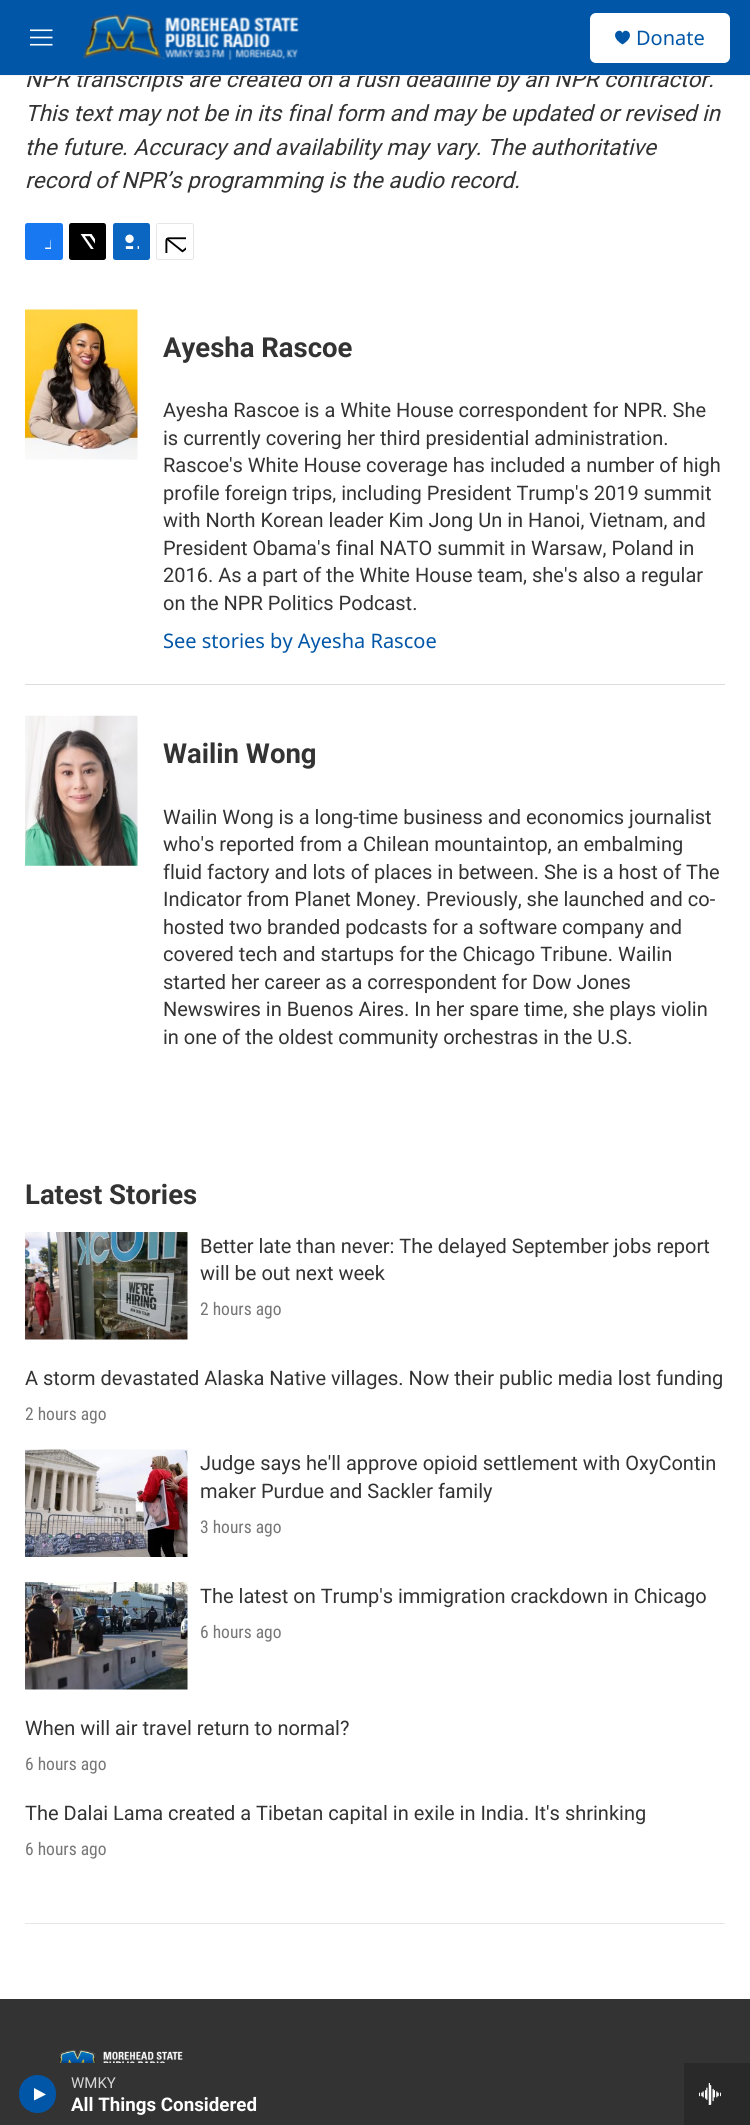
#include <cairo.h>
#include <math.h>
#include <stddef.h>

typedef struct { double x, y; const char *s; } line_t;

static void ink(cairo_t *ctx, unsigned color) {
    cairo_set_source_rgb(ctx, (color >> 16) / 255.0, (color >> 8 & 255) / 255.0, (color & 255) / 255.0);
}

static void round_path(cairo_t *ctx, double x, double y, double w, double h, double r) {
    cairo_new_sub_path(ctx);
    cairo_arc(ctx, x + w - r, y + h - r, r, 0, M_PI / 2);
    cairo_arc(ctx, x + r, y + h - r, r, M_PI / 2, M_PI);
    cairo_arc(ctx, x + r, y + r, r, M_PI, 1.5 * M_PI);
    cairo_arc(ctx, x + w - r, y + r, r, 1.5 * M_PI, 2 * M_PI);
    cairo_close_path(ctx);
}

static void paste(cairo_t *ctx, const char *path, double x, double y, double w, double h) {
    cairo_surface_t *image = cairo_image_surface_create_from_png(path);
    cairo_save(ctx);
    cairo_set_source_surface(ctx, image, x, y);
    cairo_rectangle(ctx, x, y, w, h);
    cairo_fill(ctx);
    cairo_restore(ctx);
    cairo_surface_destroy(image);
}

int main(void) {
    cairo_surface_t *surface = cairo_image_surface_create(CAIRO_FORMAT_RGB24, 750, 2125);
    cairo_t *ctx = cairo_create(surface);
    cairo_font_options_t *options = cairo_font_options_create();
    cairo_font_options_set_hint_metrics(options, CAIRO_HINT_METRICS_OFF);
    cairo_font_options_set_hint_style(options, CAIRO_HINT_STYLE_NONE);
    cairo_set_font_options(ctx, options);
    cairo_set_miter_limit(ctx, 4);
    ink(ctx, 0xFFFFFF);
    cairo_paint(ctx);
    cairo_select_font_face(ctx, "Roboto", CAIRO_FONT_SLANT_ITALIC, CAIRO_FONT_WEIGHT_NORMAL);
    cairo_set_font_size(ctx, 22.5);
    ink(ctx, 0x333333);
    cairo_move_to(ctx, 25, 87);
    cairo_show_text(ctx, "NPR transcripts are created on a rush deadline by an NPR contractor.");
    ink(ctx, 0x0156A7);
    cairo_rectangle(ctx, 0, 0, 750, 75);
    cairo_fill(ctx);
    ink(ctx, 0xF5F5F5);
    cairo_rectangle(ctx, 0, 75, 750, 1);
    cairo_fill(ctx);
    paste(ctx, "media/1.png", 30, 29, 23, 17);
    paste(ctx, "media/2.png", 83, 14, 216, 46);
    ink(ctx, 0xFFFFFF);
    round_path(ctx, 590, 13, 140, 50, 6);
    cairo_fill(ctx);
    ink(ctx, 0x0156A7);
    cairo_new_path(ctx);
    cairo_move_to(ctx, 622.5, 33);
    cairo_curve_to(ctx, 620, 26.5, 607, 35, 622.5, 44.5);
    cairo_curve_to(ctx, 638, 35, 625, 26.5, 622.5, 33);
    cairo_close_path(ctx);
    cairo_fill(ctx);
    cairo_select_font_face(ctx, "Noto Sans", CAIRO_FONT_SLANT_NORMAL, CAIRO_FONT_WEIGHT_NORMAL);
    cairo_set_font_size(ctx, 20);
    cairo_move_to(ctx, 636, 45);
    cairo_show_text(ctx, "Donate");
    ink(ctx, 0x333333);
    cairo_rectangle(ctx, 0, 2063, 684, 62);
    cairo_fill(ctx);
    ink(ctx, 0x0156A7);
    round_path(ctx, 19, 2075, 37, 38, 18.5);
    cairo_fill(ctx);
    ink(ctx, 0xFFFFFF);
    cairo_new_path(ctx);
    cairo_move_to(ctx, 34, 2088);
    cairo_line_to(ctx, 46, 2094.5);
    cairo_line_to(ctx, 34, 2100.5);
    cairo_close_path(ctx);
    cairo_fill(ctx);
    cairo_select_font_face(ctx, "Roboto", CAIRO_FONT_SLANT_NORMAL, CAIRO_FONT_WEIGHT_NORMAL);
    cairo_set_font_size(ctx, 15);
    ink(ctx, 0xD6D6D6);
    cairo_move_to(ctx, 71, 2088);
    cairo_show_text(ctx, "WMKY");
    cairo_select_font_face(ctx, "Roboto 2", CAIRO_FONT_SLANT_NORMAL, CAIRO_FONT_WEIGHT_BOLD);
    cairo_set_font_size(ctx, 18.75);
    ink(ctx, 0xFFFFFF);
    cairo_move_to(ctx, 71, 2111);
    cairo_show_text(ctx, "All Things Considered");
    ink(ctx, 0x292929);
    cairo_rectangle(ctx, 684, 2063, 66, 62);
    cairo_fill(ctx);
    paste(ctx, "media/3.png", 699, 2083, 22, 22);
    cairo_select_font_face(ctx, "Roboto", CAIRO_FONT_SLANT_ITALIC, CAIRO_FONT_WEIGHT_NORMAL);
    cairo_set_font_size(ctx, 22.5);
    ink(ctx, 0x333333);
    {
        static const line_t items[] = {
            {25, 121, "This text may not be in its final form and may be updated or revised in"},
            {25, 155, "the future. Accuracy and availability may vary. The authoritative"},
            {25, 188, "record of NPR’s programming is the audio record."},
        };
        for (size_t i = 0; i < sizeof items / sizeof *items; i++) {
            cairo_move_to(ctx, items[i].x, items[i].y);
            cairo_show_text(ctx, items[i].s);
        }
    }
    ink(ctx, 0x1778F2);
    round_path(ctx, 25, 223, 38, 37, 2.5);
    cairo_fill(ctx);
    paste(ctx, "media/4.png", 45, 239, 6, 10);
    ink(ctx, 0x000000);
    round_path(ctx, 69, 223, 37, 37, 2.5);
    cairo_fill(ctx);
    paste(ctx, "media/5.png", 80, 234, 15, 15);
    ink(ctx, 0x0A66C1);
    round_path(ctx, 113, 223, 37, 37, 2.5);
    cairo_fill(ctx);
    paste(ctx, "media/6.png", 125, 234, 14, 15);
    round_path(ctx, 156.5, 223.5, 37, 36, 2);
    ink(ctx, 0xE6E6E6);
    cairo_set_line_width(ctx, 1);
    cairo_stroke(ctx);
    paste(ctx, "media/7.png", 165, 237, 21, 16);
    ink(ctx, 0xDCDCDC);
    cairo_rectangle(ctx, 25, 684, 700, 1);
    cairo_fill(ctx);
    paste(ctx, "media/8.png", 25, 309, 113, 151);
    cairo_select_font_face(ctx, "Roboto", CAIRO_FONT_SLANT_NORMAL, CAIRO_FONT_WEIGHT_BOLD);
    cairo_set_font_size(ctx, 27.5);
    ink(ctx, 0x333333);
    cairo_move_to(ctx, 163, 357);
    cairo_show_text(ctx, "Ayesha Rascoe");
    cairo_select_font_face(ctx, "Roboto", CAIRO_FONT_SLANT_NORMAL, CAIRO_FONT_WEIGHT_NORMAL);
    cairo_set_font_size(ctx, 20);
    {
        static const line_t items[] = {
            {163, 417, "Ayesha Rascoe is a White House correspondent for NPR. She"},
            {163, 445, "is currently covering her third presidential administration."},
            {163, 472, "Rascoe's White House coverage has included a number of high"},
            {163, 500, "profile foreign trips, including President Trump's 2019 summit"},
            {163, 527, "with North Korean leader Kim Jong Un in Hanoi, Vietnam, and"},
            {163, 555, "President Obama's final NATO summit in Warsaw, Poland in"},
            {163, 582, "2016. As a part of the White House team, she's also a regular"},
            {163, 610, "on the NPR Politics Podcast."},
        };
        for (size_t i = 0; i < sizeof items / sizeof *items; i++) {
            cairo_move_to(ctx, items[i].x, items[i].y);
            cairo_show_text(ctx, items[i].s);
        }
    }
    cairo_select_font_face(ctx, "Noto Sans", CAIRO_FONT_SLANT_NORMAL, CAIRO_FONT_WEIGHT_NORMAL);
    ink(ctx, 0x0156A7);
    cairo_move_to(ctx, 163, 648);
    cairo_show_text(ctx, "See stories by Ayesha Rascoe");
    paste(ctx, "media/9.png", 25, 715, 113, 151);
    cairo_select_font_face(ctx, "Roboto", CAIRO_FONT_SLANT_NORMAL, CAIRO_FONT_WEIGHT_BOLD);
    cairo_set_font_size(ctx, 27.5);
    ink(ctx, 0x333333);
    cairo_move_to(ctx, 163, 763);
    cairo_show_text(ctx, "Wailin Wong");
    cairo_select_font_face(ctx, "Roboto", CAIRO_FONT_SLANT_NORMAL, CAIRO_FONT_WEIGHT_NORMAL);
    cairo_set_font_size(ctx, 20);
    {
        static const line_t items[] = {
            {163, 824, "Wailin Wong is a long-time business and economics journalist"},
            {163, 851, "who's reported from a Chilean mountaintop, an embalming"},
            {163, 879, "fluid factory and lots of places in between. She is a host of The"},
            {163, 906, "Indicator from Planet Money. Previously, she launched and co-"},
            {163, 934, "hosted two branded podcasts for a software company and"},
            {163, 961, "covered tech and startups for the Chicago Tribune. Wailin"},
            {163, 989, "started her career as a correspondent for Dow Jones"},
            {163, 1016, "Newswires in Buenos Aires. In her spare time, she plays violin"},
            {163, 1044, "in one of the oldest community orchestras in the U.S."},
        };
        for (size_t i = 0; i < sizeof items / sizeof *items; i++) {
            cairo_move_to(ctx, items[i].x, items[i].y);
            cairo_show_text(ctx, items[i].s);
        }
    }
    cairo_select_font_face(ctx, "Roboto", CAIRO_FONT_SLANT_NORMAL, CAIRO_FONT_WEIGHT_BOLD);
    cairo_set_font_size(ctx, 27.5);
    cairo_move_to(ctx, 25, 1204);
    cairo_show_text(ctx, "Latest Stories");
    ink(ctx, 0xE6E6E6);
    cairo_rectangle(ctx, 25, 1923, 700, 1);
    cairo_fill(ctx);
    paste(ctx, "media/10.png", 25, 1232, 163, 108);
    cairo_select_font_face(ctx, "Roboto", CAIRO_FONT_SLANT_NORMAL, CAIRO_FONT_WEIGHT_NORMAL);
    cairo_set_font_size(ctx, 20);
    ink(ctx, 0x333333);
    cairo_move_to(ctx, 200, 1253);
    cairo_show_text(ctx, "Better late than never: The delayed September jobs report");
    cairo_move_to(ctx, 200, 1280);
    cairo_show_text(ctx, "will be out next week");
    cairo_select_font_face(ctx, "Roboto Condensed", CAIRO_FONT_SLANT_NORMAL, CAIRO_FONT_WEIGHT_NORMAL);
    cairo_set_font_size(ctx, 17.5);
    ink(ctx, 0x767676);
    cairo_move_to(ctx, 200, 1315);
    cairo_show_text(ctx, "2 hours ago");
    cairo_select_font_face(ctx, "Roboto", CAIRO_FONT_SLANT_NORMAL, CAIRO_FONT_WEIGHT_NORMAL);
    cairo_set_font_size(ctx, 20);
    ink(ctx, 0x333333);
    cairo_move_to(ctx, 25, 1385);
    cairo_show_text(ctx, "A storm devastated Alaska Native villages. Now their public media lost funding");
    cairo_select_font_face(ctx, "Roboto Condensed", CAIRO_FONT_SLANT_NORMAL, CAIRO_FONT_WEIGHT_NORMAL);
    cairo_set_font_size(ctx, 17.5);
    ink(ctx, 0x767676);
    cairo_move_to(ctx, 25, 1420);
    cairo_show_text(ctx, "2 hours ago");
    paste(ctx, "media/11.png", 25, 1449, 163, 108);
    cairo_select_font_face(ctx, "Roboto", CAIRO_FONT_SLANT_NORMAL, CAIRO_FONT_WEIGHT_NORMAL);
    cairo_set_font_size(ctx, 20);
    ink(ctx, 0x333333);
    cairo_move_to(ctx, 200, 1470);
    cairo_show_text(ctx, "Judge says he'll approve opioid settlement with OxyContin");
    cairo_move_to(ctx, 200, 1498);
    cairo_show_text(ctx, "maker Purdue and Sackler family");
    cairo_select_font_face(ctx, "Roboto Condensed", CAIRO_FONT_SLANT_NORMAL, CAIRO_FONT_WEIGHT_NORMAL);
    cairo_set_font_size(ctx, 17.5);
    ink(ctx, 0x767676);
    cairo_move_to(ctx, 200, 1533);
    cairo_show_text(ctx, "3 hours ago");
    paste(ctx, "media/12.png", 25, 1582, 163, 108);
    cairo_select_font_face(ctx, "Roboto", CAIRO_FONT_SLANT_NORMAL, CAIRO_FONT_WEIGHT_NORMAL);
    cairo_set_font_size(ctx, 20);
    ink(ctx, 0x333333);
    cairo_move_to(ctx, 200, 1603);
    cairo_show_text(ctx, "The latest on Trump's immigration crackdown in Chicago");
    cairo_select_font_face(ctx, "Roboto Condensed", CAIRO_FONT_SLANT_NORMAL, CAIRO_FONT_WEIGHT_NORMAL);
    cairo_set_font_size(ctx, 17.5);
    ink(ctx, 0x767676);
    cairo_move_to(ctx, 200, 1638);
    cairo_show_text(ctx, "6 hours ago");
    cairo_select_font_face(ctx, "Roboto", CAIRO_FONT_SLANT_NORMAL, CAIRO_FONT_WEIGHT_NORMAL);
    cairo_set_font_size(ctx, 20);
    ink(ctx, 0x333333);
    cairo_move_to(ctx, 25, 1735);
    cairo_show_text(ctx, "When will air travel return to normal?");
    cairo_select_font_face(ctx, "Roboto Condensed", CAIRO_FONT_SLANT_NORMAL, CAIRO_FONT_WEIGHT_NORMAL);
    cairo_set_font_size(ctx, 17.5);
    ink(ctx, 0x767676);
    cairo_move_to(ctx, 25, 1770);
    cairo_show_text(ctx, "6 hours ago");
    cairo_select_font_face(ctx, "Roboto", CAIRO_FONT_SLANT_NORMAL, CAIRO_FONT_WEIGHT_NORMAL);
    cairo_set_font_size(ctx, 20);
    ink(ctx, 0x333333);
    cairo_move_to(ctx, 25, 1820);
    cairo_show_text(ctx, "The Dalai Lama created a Tibetan capital in exile in India. It's shrinking");
    cairo_select_font_face(ctx, "Roboto Condensed", CAIRO_FONT_SLANT_NORMAL, CAIRO_FONT_WEIGHT_NORMAL);
    cairo_set_font_size(ctx, 17.5);
    ink(ctx, 0x767676);
    cairo_move_to(ctx, 25, 1855);
    cairo_show_text(ctx, "6 hours ago");
    ink(ctx, 0x333333);
    cairo_rectangle(ctx, 0, 1999, 750, 64);
    cairo_fill(ctx);
    paste(ctx, "media/13.png", 58, 2049, 125, 14);
    cairo_surface_write_to_png(surface, "image.png");
    cairo_font_options_destroy(options);
    cairo_destroy(ctx);
    cairo_surface_destroy(surface);
    return 0;
}
